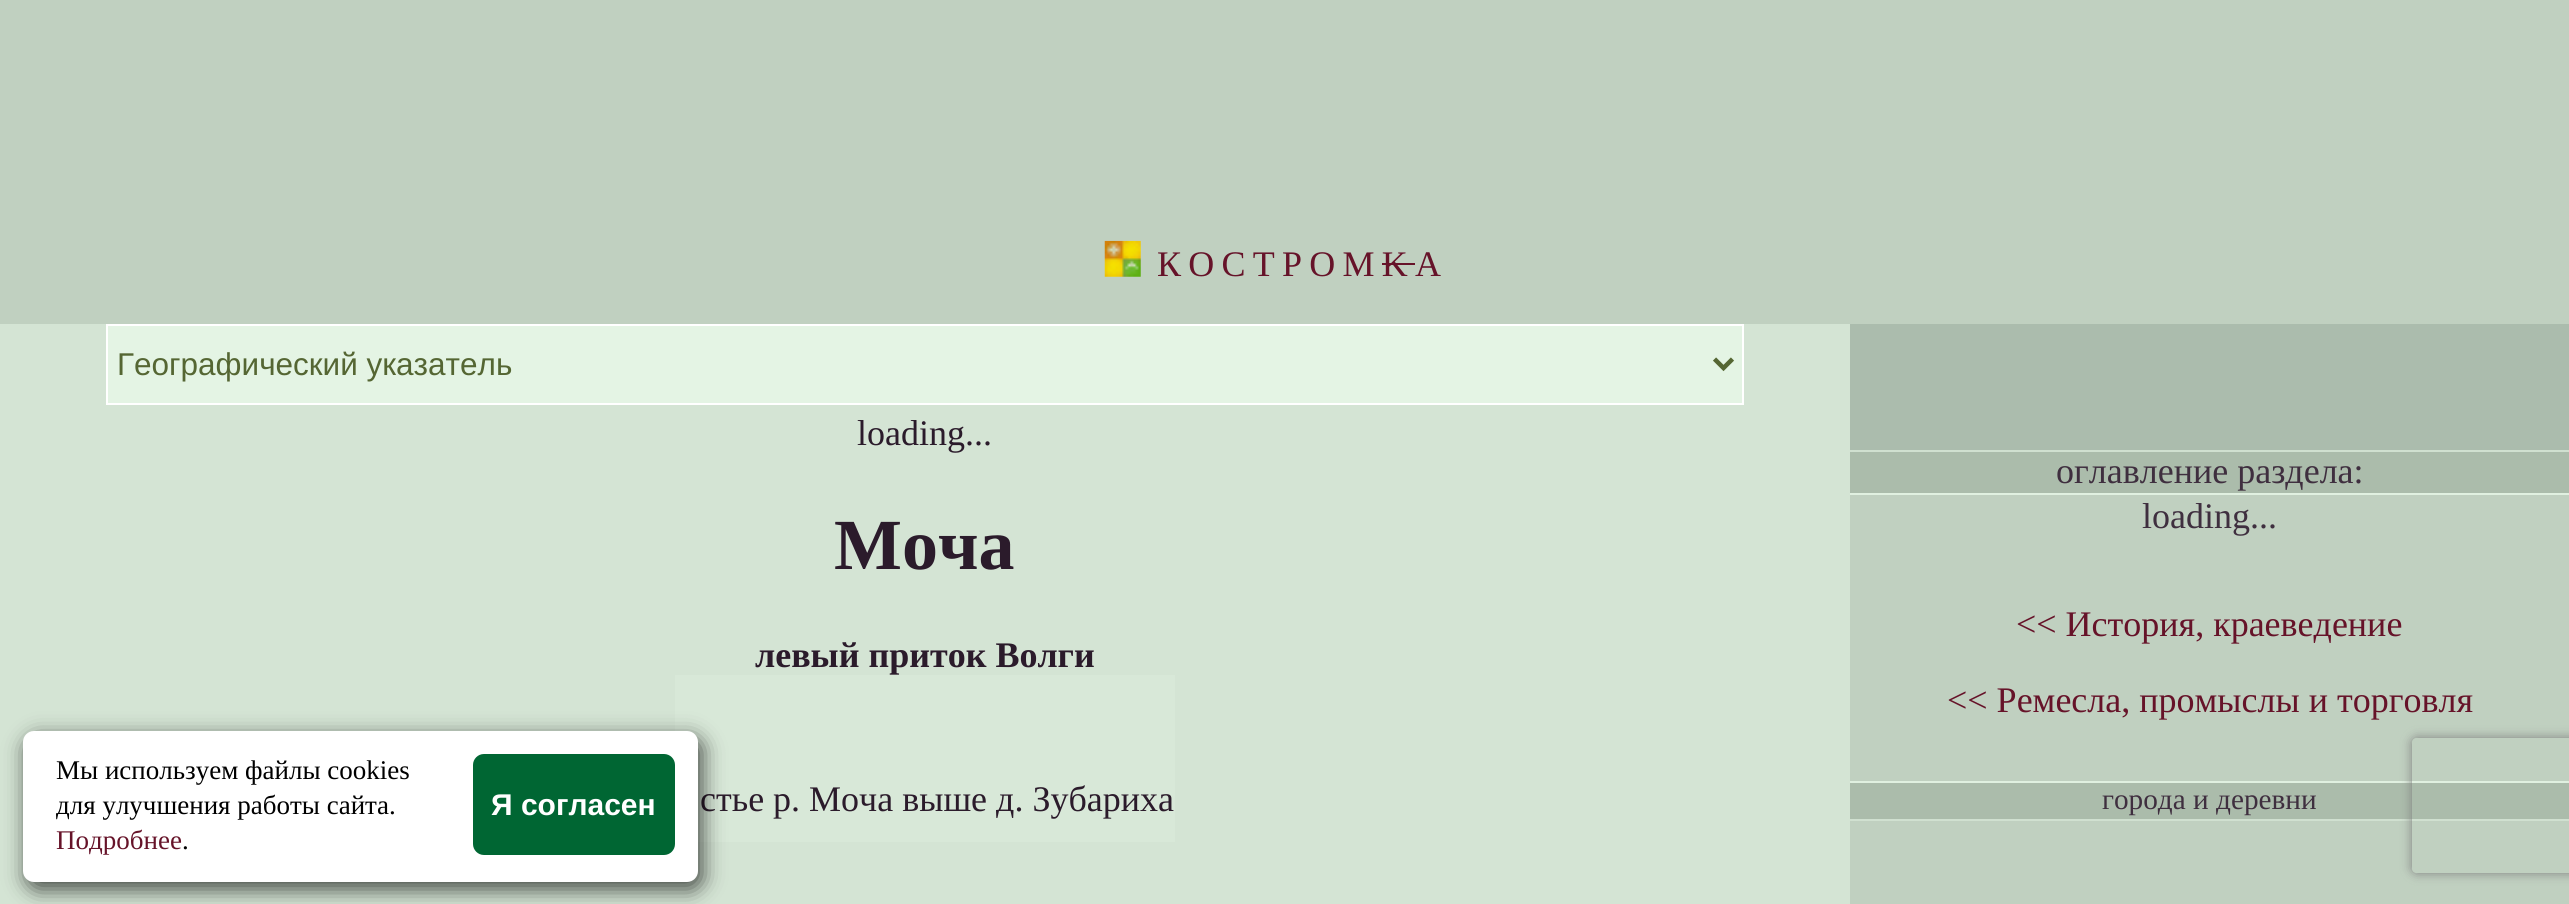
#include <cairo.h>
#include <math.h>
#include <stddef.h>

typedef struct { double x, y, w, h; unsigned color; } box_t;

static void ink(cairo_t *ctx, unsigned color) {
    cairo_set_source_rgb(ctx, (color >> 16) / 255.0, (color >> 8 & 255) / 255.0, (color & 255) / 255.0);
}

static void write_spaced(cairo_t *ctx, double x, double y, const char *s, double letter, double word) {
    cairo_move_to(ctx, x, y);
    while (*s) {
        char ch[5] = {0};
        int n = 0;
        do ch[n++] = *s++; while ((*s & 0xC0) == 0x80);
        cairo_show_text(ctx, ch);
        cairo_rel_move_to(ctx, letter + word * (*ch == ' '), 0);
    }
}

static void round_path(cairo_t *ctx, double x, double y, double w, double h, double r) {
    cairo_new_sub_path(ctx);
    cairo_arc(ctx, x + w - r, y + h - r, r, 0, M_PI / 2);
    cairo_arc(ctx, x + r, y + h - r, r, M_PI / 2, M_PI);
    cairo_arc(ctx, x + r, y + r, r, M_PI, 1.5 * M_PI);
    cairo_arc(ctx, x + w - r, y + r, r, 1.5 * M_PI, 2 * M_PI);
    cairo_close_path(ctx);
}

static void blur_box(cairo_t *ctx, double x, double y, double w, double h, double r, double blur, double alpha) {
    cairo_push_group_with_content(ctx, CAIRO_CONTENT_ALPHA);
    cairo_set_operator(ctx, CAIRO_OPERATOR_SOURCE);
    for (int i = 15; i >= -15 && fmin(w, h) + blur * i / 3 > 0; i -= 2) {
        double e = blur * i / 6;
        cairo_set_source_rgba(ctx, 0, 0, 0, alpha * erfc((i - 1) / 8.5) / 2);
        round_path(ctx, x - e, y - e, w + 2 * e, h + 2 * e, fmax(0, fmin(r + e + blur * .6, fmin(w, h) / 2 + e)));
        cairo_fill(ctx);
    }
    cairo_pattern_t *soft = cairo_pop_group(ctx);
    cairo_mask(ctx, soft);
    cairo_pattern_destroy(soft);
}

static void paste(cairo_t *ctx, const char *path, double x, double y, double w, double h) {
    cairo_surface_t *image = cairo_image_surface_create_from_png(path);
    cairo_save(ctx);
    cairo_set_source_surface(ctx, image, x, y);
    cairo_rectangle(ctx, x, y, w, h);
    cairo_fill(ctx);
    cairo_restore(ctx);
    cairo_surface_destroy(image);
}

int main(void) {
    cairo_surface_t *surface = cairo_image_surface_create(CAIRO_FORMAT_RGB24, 2569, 904);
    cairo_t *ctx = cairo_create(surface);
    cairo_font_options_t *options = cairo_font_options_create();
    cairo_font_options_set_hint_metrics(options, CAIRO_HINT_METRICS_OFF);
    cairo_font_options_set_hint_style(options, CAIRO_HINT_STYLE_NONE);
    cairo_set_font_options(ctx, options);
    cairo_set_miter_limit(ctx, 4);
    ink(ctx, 0xC0D0C0);
    cairo_paint(ctx);
    paste(ctx, "media/1.png", 1104, 240, 37, 37);
    cairo_select_font_face(ctx, "Liberation Serif", CAIRO_FONT_SLANT_NORMAL, CAIRO_FONT_WEIGHT_NORMAL);
    cairo_set_font_size(ctx, 36);
    ink(ctx, 0x661329);
    write_spaced(ctx, 1157, 276, "КОСТРОМKА", 7.25, 0);
    cairo_rectangle(ctx, 1382, 263, 33, 2);
    cairo_fill(ctx);
    ink(ctx, 0xD4E4D4);
    cairo_rectangle(ctx, 0, 324, 1850, 580);
    cairo_fill(ctx);
    ink(ctx, 0xE4F4E4);
    cairo_rectangle(ctx, 107, 325, 1636, 79);
    cairo_fill_preserve(ctx);
    ink(ctx, 0xFFFFFF);
    cairo_stroke(ctx);
    cairo_new_path(ctx);
    cairo_move_to(ctx, 1714.5, 359);
    cairo_line_to(ctx, 1723.5, 368);
    cairo_line_to(ctx, 1732.5, 359);
    ink(ctx, 0x556633);
    cairo_set_line_width(ctx, 4.5);
    cairo_stroke(ctx);
    cairo_select_font_face(ctx, "Liberation Sans", CAIRO_FONT_SLANT_NORMAL, CAIRO_FONT_WEIGHT_NORMAL);
    cairo_set_font_size(ctx, 31.5);
    cairo_move_to(ctx, 117, 375);
    cairo_show_text(ctx, "Географический указатель");
    cairo_select_font_face(ctx, "Liberation Serif", CAIRO_FONT_SLANT_NORMAL, CAIRO_FONT_WEIGHT_NORMAL);
    cairo_set_font_size(ctx, 36);
    ink(ctx, 0x2B1B2B);
    cairo_move_to(ctx, 857, 445);
    cairo_show_text(ctx, "loading...");
    cairo_select_font_face(ctx, "Liberation Serif", CAIRO_FONT_SLANT_NORMAL, CAIRO_FONT_WEIGHT_BOLD);
    cairo_set_font_size(ctx, 72);
    cairo_move_to(ctx, 834, 569);
    cairo_show_text(ctx, "Моча");
    cairo_set_font_size(ctx, 36);
    cairo_move_to(ctx, 755, 667);
    cairo_show_text(ctx, "левый приток Волги");
    ink(ctx, 0xD8E8D8);
    cairo_rectangle(ctx, 675, 675, 500, 167);
    cairo_fill(ctx);
    cairo_select_font_face(ctx, "Liberation Serif", CAIRO_FONT_SLANT_NORMAL, CAIRO_FONT_WEIGHT_NORMAL);
    ink(ctx, 0x2B1B2B);
    cairo_move_to(ctx, 700, 811);
    cairo_show_text(ctx, "стье р. Моча выше д. Зубариха");
    {
        static const box_t items[] = {
            {1850, 324, 719, 126, 0xABBCAD},
            {1850, 452, 719, 41, 0xABBCAB},
            {1850, 450, 719, 2, 0xD0E0D0},
            {1850, 493, 719, 2, 0xE0F0E0},
        };
        for (size_t i = 0; i < sizeof items / sizeof *items; i++) {
            ink(ctx, items[i].color);
            cairo_rectangle(ctx, items[i].x, items[i].y, items[i].w, items[i].h);
            cairo_fill(ctx);
        }
    }
    ink(ctx, 0x3F2F3F);
    cairo_move_to(ctx, 2056, 483);
    cairo_show_text(ctx, "оглавление раздела:");
    cairo_move_to(ctx, 2142, 528);
    cairo_show_text(ctx, "loading...");
    ink(ctx, 0x661329);
    cairo_move_to(ctx, 2016, 636);
    cairo_show_text(ctx, "<< История, краеведение");
    cairo_move_to(ctx, 1947, 712);
    cairo_show_text(ctx, "<< Ремесла, промыслы и торговля");
    {
        static const box_t items[] = {
            {1850, 783, 719, 36, 0xABBCAB},
            {1850, 781, 719, 2, 0xE0F0E0},
            {1850, 819, 719, 2, 0xD0E0D0},
        };
        for (size_t i = 0; i < sizeof items / sizeof *items; i++) {
            ink(ctx, items[i].color);
            cairo_rectangle(ctx, items[i].x, items[i].y, items[i].w, items[i].h);
            cairo_fill(ctx);
        }
    }
    cairo_set_font_size(ctx, 29.25);
    ink(ctx, 0x3F2F3F);
    cairo_move_to(ctx, 2102, 809);
    cairo_show_text(ctx, "города и деревни");
    cairo_save(ctx);
    cairo_set_fill_rule(ctx, CAIRO_FILL_RULE_EVEN_ODD);
    cairo_new_path(ctx);
    cairo_move_to(ctx, 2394, 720);
    cairo_line_to(ctx, 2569, 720);
    cairo_line_to(ctx, 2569, 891);
    cairo_line_to(ctx, 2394, 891);
    cairo_close_path(ctx);
    cairo_move_to(ctx, 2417, 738);
    cairo_line_to(ctx, 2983, 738);
    cairo_curve_to(ctx, 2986, 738, 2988, 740, 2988, 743);
    cairo_line_to(ctx, 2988, 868);
    cairo_curve_to(ctx, 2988, 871, 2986, 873, 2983, 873);
    cairo_line_to(ctx, 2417, 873);
    cairo_curve_to(ctx, 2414, 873, 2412, 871, 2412, 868);
    cairo_line_to(ctx, 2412, 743);
    cairo_curve_to(ctx, 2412, 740, 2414, 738, 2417, 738);
    cairo_close_path(ctx);
    cairo_clip(ctx);
    ink(ctx, 0x808080);
    blur_box(ctx, 2412, 738, 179, 135, 5, 5.5, 1);
    cairo_restore(ctx);
    ink(ctx, 0x000000);
    blur_box(ctx, 27, 738, 675, 151, 11, 11, 0.7);
    ink(ctx, 0xFFFFFF);
    round_path(ctx, 23, 731, 675, 151, 11);
    cairo_fill(ctx);
    cairo_set_font_size(ctx, 27);
    ink(ctx, 0x000000);
    cairo_move_to(ctx, 56, 779);
    cairo_show_text(ctx, "Мы используем файлы cookies");
    cairo_move_to(ctx, 56, 814);
    cairo_show_text(ctx, "для улучшения работы сайта.");
    ink(ctx, 0x661329);
    cairo_move_to(ctx, 56, 849);
    cairo_show_text(ctx, "Подробнее");
    ink(ctx, 0x000000);
    cairo_move_to(ctx, 182, 849);
    cairo_show_text(ctx, ".");
    ink(ctx, 0x006633);
    round_path(ctx, 473, 754, 202, 101, 11);
    cairo_fill(ctx);
    cairo_select_font_face(ctx, "Liberation Sans", CAIRO_FONT_SLANT_NORMAL, CAIRO_FONT_WEIGHT_BOLD);
    cairo_set_font_size(ctx, 30);
    ink(ctx, 0xFFFFFF);
    cairo_move_to(ctx, 491, 815);
    cairo_show_text(ctx, "Я согласен");
    cairo_surface_write_to_png(surface, "image.png");
    cairo_font_options_destroy(options);
    cairo_destroy(ctx);
    cairo_surface_destroy(surface);
    return 0;
}
